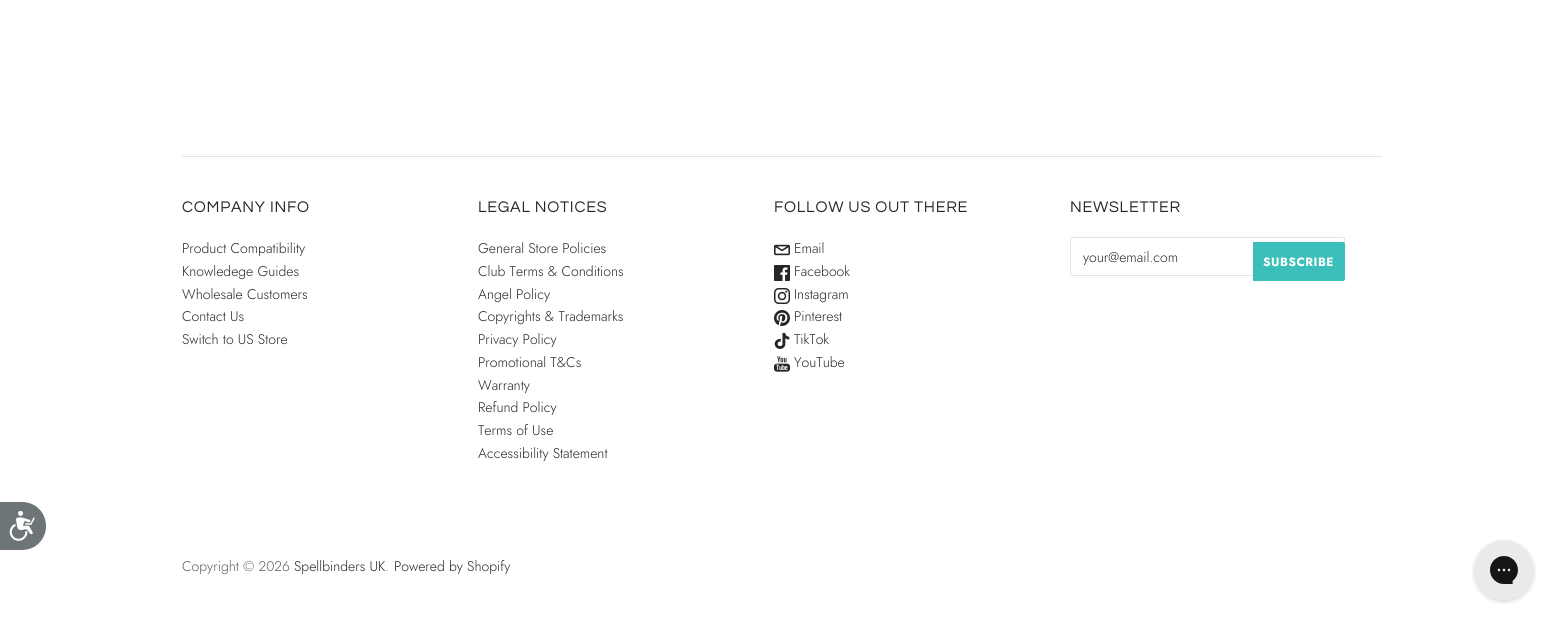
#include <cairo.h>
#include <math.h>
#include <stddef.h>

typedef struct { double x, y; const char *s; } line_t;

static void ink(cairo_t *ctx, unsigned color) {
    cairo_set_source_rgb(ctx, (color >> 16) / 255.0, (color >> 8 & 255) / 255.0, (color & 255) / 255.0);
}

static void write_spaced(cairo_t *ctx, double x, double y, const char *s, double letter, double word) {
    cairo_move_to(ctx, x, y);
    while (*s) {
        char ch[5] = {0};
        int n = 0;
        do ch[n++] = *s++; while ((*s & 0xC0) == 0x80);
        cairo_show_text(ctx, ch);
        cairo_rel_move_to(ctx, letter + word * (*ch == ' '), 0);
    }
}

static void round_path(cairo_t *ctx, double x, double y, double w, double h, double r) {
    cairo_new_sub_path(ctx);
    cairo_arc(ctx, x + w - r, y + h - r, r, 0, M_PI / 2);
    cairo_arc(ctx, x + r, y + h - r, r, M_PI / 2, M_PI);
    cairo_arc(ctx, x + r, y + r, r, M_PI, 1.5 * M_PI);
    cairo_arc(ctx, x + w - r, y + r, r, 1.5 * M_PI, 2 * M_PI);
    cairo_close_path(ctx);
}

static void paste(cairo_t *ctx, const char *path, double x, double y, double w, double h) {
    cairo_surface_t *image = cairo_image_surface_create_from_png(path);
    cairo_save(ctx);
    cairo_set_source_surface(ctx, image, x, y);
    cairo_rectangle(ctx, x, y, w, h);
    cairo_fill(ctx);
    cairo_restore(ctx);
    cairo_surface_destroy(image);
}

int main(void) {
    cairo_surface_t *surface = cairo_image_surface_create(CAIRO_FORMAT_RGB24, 1564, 627);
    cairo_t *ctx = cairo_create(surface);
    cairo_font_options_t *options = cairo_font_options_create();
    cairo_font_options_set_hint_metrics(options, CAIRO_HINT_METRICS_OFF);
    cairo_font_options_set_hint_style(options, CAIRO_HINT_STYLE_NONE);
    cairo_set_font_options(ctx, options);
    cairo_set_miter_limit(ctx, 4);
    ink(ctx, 0xFFFFFF);
    cairo_paint(ctx);
    ink(ctx, 0x6E7577);
    cairo_new_path(ctx);
    cairo_move_to(ctx, 0, 502);
    cairo_line_to(ctx, 22, 502);
    cairo_curve_to(ctx, 35.5, 502, 46, 512.5, 46, 526);
    cairo_curve_to(ctx, 46, 539.5, 35.5, 550, 22, 550);
    cairo_line_to(ctx, 0, 550);
    cairo_close_path(ctx);
    cairo_fill(ctx);
    paste(ctx, "media/1.png", 9, 511, 26, 30);
    ink(ctx, 0xE4E4E4);
    cairo_rectangle(ctx, 182, 156, 1200, 1);
    cairo_fill(ctx);
    cairo_select_font_face(ctx, "Questrial", CAIRO_FONT_SLANT_NORMAL, CAIRO_FONT_WEIGHT_NORMAL);
    cairo_set_font_size(ctx, 16);
    ink(ctx, 0x262626);
    write_spaced(ctx, 182, 212, "COMPANY INFO", 0.75, 0);
    cairo_select_font_face(ctx, "Jost Light", CAIRO_FONT_SLANT_NORMAL, CAIRO_FONT_WEIGHT_NORMAL);
    cairo_set_font_size(ctx, 14);
    {
        static const line_t items[] = {
            {182, 253, "Product Compatibility"},
            {182, 276, "Knowledege Guides"},
            {182, 299, "Wholesale Customers"},
            {182, 321, "Contact Us"},
            {182, 344, "Switch to US Store"},
        };
        for (size_t i = 0; i < sizeof items / sizeof *items; i++) {
            cairo_move_to(ctx, items[i].x, items[i].y);
            cairo_show_text(ctx, items[i].s);
        }
    }
    cairo_select_font_face(ctx, "Questrial", CAIRO_FONT_SLANT_NORMAL, CAIRO_FONT_WEIGHT_NORMAL);
    cairo_set_font_size(ctx, 16);
    write_spaced(ctx, 478, 212, "LEGAL NOTICES", 0.75, 0);
    cairo_select_font_face(ctx, "Jost Light", CAIRO_FONT_SLANT_NORMAL, CAIRO_FONT_WEIGHT_NORMAL);
    cairo_set_font_size(ctx, 14);
    {
        static const line_t items[] = {
            {478, 253, "General Store Policies"},
            {478, 276, "Club Terms & Conditions"},
            {478, 299, "Angel Policy"},
            {478, 321, "Copyrights & Trademarks"},
            {478, 344, "Privacy Policy"},
            {478, 367, "Promotional T&Cs"},
            {478, 390, "Warranty"},
            {478, 412, "Refund Policy"},
            {478, 435, "Terms of Use"},
            {478, 458, "Accessibility Statement"},
        };
        for (size_t i = 0; i < sizeof items / sizeof *items; i++) {
            cairo_move_to(ctx, items[i].x, items[i].y);
            cairo_show_text(ctx, items[i].s);
        }
    }
    cairo_select_font_face(ctx, "Questrial", CAIRO_FONT_SLANT_NORMAL, CAIRO_FONT_WEIGHT_NORMAL);
    cairo_set_font_size(ctx, 16);
    write_spaced(ctx, 774, 212, "FOLLOW US OUT THERE", 0.75, 0);
    paste(ctx, "media/2.png", 774, 244, 16, 12);
    cairo_select_font_face(ctx, "Jost Light", CAIRO_FONT_SLANT_NORMAL, CAIRO_FONT_WEIGHT_NORMAL);
    cairo_set_font_size(ctx, 14);
    cairo_move_to(ctx, 794, 253);
    cairo_show_text(ctx, "Email");
    paste(ctx, "media/3.png", 774, 265, 16, 16);
    cairo_move_to(ctx, 794, 276);
    cairo_show_text(ctx, "Facebook");
    paste(ctx, "media/4.png", 774, 288, 16, 16);
    cairo_move_to(ctx, 794, 299);
    cairo_show_text(ctx, "Instagram");
    paste(ctx, "media/5.png", 774, 310, 16, 16);
    cairo_move_to(ctx, 794, 321);
    cairo_show_text(ctx, "Pinterest");
    paste(ctx, "media/6.png", 774, 333, 16, 16);
    cairo_move_to(ctx, 794, 344);
    cairo_show_text(ctx, "TikTok");
    paste(ctx, "media/7.png", 774, 356, 16, 16);
    cairo_move_to(ctx, 794, 367);
    cairo_show_text(ctx, "YouTube");
    cairo_select_font_face(ctx, "Questrial", CAIRO_FONT_SLANT_NORMAL, CAIRO_FONT_WEIGHT_NORMAL);
    cairo_set_font_size(ctx, 16);
    write_spaced(ctx, 1070, 212, "NEWSLETTER", 0.75, 0);
    round_path(ctx, 1070.5, 237.5, 274, 38, 1.5);
    ink(ctx, 0xE4E4E4);
    cairo_set_line_width(ctx, 1);
    cairo_stroke(ctx);
    cairo_select_font_face(ctx, "Jost Light", CAIRO_FONT_SLANT_NORMAL, CAIRO_FONT_WEIGHT_NORMAL);
    cairo_set_font_size(ctx, 14);
    ink(ctx, 0x262626);
    cairo_move_to(ctx, 1083, 262);
    cairo_show_text(ctx, "your@email.com");
    ink(ctx, 0x3BBFBB);
    cairo_new_path(ctx);
    cairo_move_to(ctx, 1253, 242);
    cairo_line_to(ctx, 1343, 242);
    cairo_curve_to(ctx, 1344, 242, 1345, 243, 1345, 244);
    cairo_line_to(ctx, 1345, 279);
    cairo_curve_to(ctx, 1345, 280, 1344, 281, 1343, 281);
    cairo_line_to(ctx, 1253, 281);
    cairo_close_path(ctx);
    cairo_fill(ctx);
    cairo_select_font_face(ctx, "Jost", CAIRO_FONT_SLANT_NORMAL, CAIRO_FONT_WEIGHT_BOLD);
    cairo_set_font_size(ctx, 12);
    ink(ctx, 0xFFFFFF);
    write_spaced(ctx, 1263, 266, "SUBSCRIBE", 0.5, 0);
    cairo_select_font_face(ctx, "Jost Light", CAIRO_FONT_SLANT_NORMAL, CAIRO_FONT_WEIGHT_NORMAL);
    cairo_set_font_size(ctx, 14);
    ink(ctx, 0x5C5C5C);
    cairo_move_to(ctx, 182, 571);
    cairo_show_text(ctx, "Copyright © 2026");
    ink(ctx, 0x262626);
    cairo_move_to(ctx, 294, 571);
    cairo_show_text(ctx, "Spellbinders UK");
    ink(ctx, 0x5C5C5C);
    cairo_move_to(ctx, 385, 571);
    cairo_show_text(ctx, ".");
    ink(ctx, 0x262626);
    cairo_move_to(ctx, 394, 571);
    cairo_show_text(ctx, "Powered by Shopify");
    paste(ctx, "media/8.png", 1472, 540, 64, 64);
    cairo_surface_write_to_png(surface, "image.png");
    cairo_font_options_destroy(options);
    cairo_destroy(ctx);
    cairo_surface_destroy(surface);
    return 0;
}
